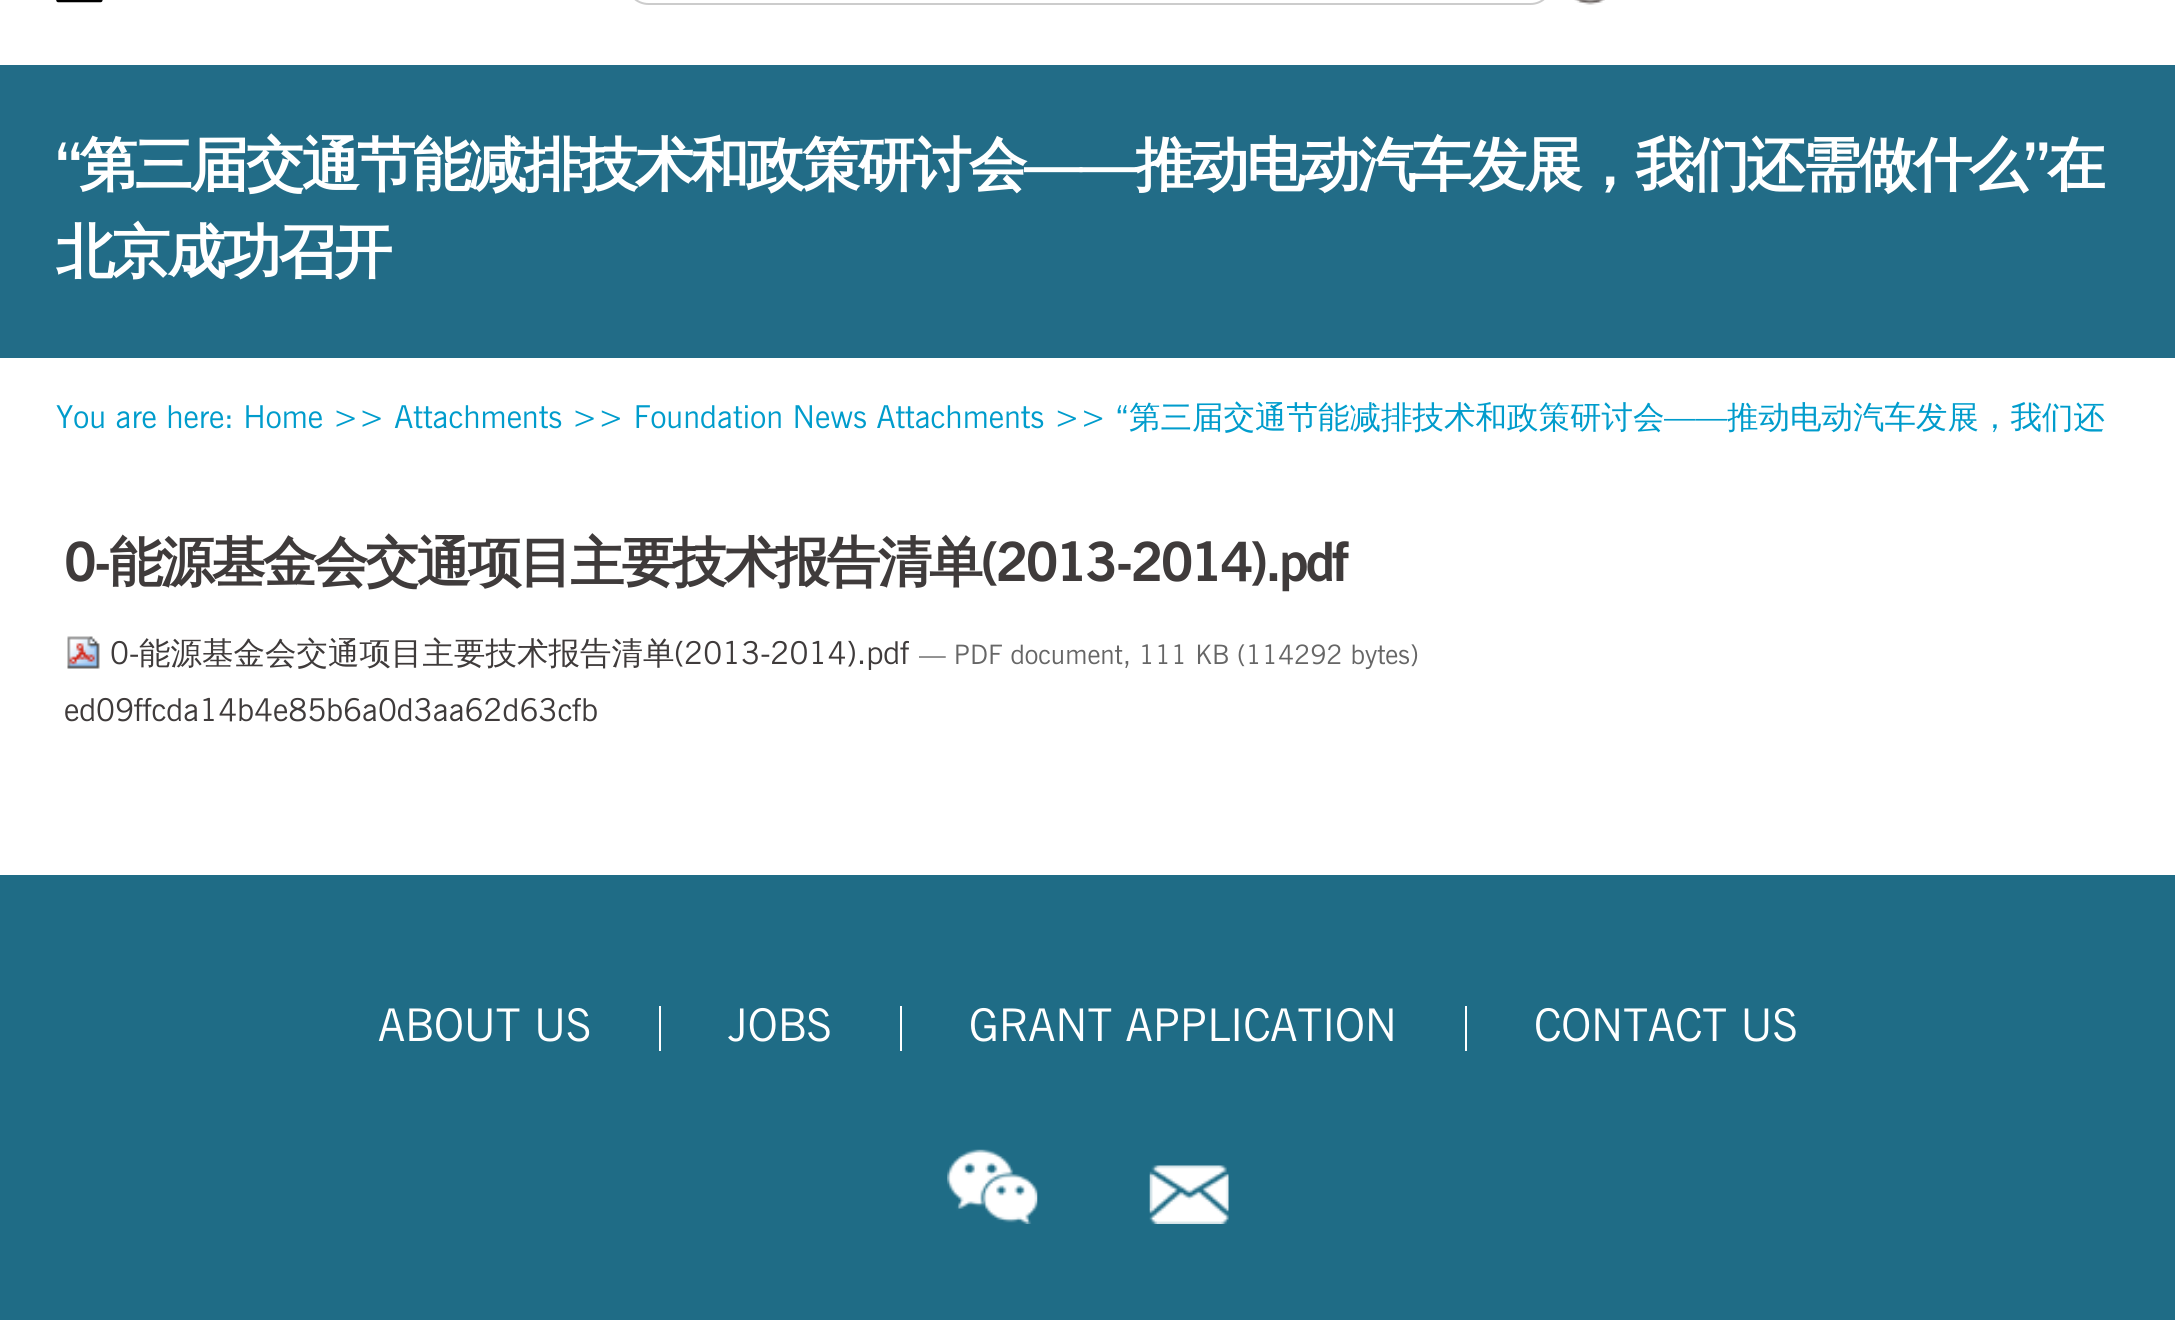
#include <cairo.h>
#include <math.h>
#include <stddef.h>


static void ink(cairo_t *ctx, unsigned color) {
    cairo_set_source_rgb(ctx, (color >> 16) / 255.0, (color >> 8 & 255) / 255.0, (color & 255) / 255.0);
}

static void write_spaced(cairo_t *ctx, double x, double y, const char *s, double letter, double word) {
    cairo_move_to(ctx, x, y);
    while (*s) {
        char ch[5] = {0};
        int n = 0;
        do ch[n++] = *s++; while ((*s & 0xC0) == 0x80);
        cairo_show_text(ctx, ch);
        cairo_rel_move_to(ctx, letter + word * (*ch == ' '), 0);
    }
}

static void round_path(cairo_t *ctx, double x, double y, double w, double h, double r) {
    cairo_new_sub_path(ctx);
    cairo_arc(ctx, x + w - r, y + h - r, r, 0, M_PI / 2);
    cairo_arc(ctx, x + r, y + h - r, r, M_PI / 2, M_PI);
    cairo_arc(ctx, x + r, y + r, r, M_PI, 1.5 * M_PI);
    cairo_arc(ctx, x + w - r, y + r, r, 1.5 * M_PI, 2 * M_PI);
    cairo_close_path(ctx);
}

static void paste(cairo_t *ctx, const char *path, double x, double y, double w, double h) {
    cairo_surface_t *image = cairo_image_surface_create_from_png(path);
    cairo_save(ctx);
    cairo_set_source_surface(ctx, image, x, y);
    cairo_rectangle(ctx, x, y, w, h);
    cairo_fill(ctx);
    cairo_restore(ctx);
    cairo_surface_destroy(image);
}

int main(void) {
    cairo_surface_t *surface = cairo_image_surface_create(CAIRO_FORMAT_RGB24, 2175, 1320);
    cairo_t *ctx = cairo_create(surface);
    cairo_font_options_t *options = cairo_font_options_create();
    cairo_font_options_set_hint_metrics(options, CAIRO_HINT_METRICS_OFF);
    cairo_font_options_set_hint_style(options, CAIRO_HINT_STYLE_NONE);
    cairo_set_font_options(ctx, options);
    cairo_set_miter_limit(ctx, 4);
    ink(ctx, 0xFFFFFF);
    cairo_paint(ctx);
    paste(ctx, "media/1.png", 56, 0, 47, 3);
    round_path(ctx, 627, -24, 925, 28, 21.5);
    ink(ctx, 0xCCCCCC);
    cairo_stroke(ctx);
    paste(ctx, "media/2.png", 1574, 0, 31, 5);
    ink(ctx, 0x226C87);
    cairo_rectangle(ctx, 0, 65, 2175, 293);
    cairo_fill(ctx);
    cairo_select_font_face(ctx, "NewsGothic", CAIRO_FONT_SLANT_NORMAL, CAIRO_FONT_WEIGHT_BOLD);
    cairo_set_font_size(ctx, 58.5);
    ink(ctx, 0xFFFFFF);
    write_spaced(ctx, 56, 185, "“", -2.9, 0);
    cairo_select_font_face(ctx, "WenQuanYi Zen Hei", CAIRO_FONT_SLANT_NORMAL, CAIRO_FONT_WEIGHT_BOLD);
    write_spaced(ctx, 79, 185, "第三届交通节能减排技术和政策研讨会", -2.9, 0);
    cairo_select_font_face(ctx, "NewsGothic", CAIRO_FONT_SLANT_NORMAL, CAIRO_FONT_WEIGHT_BOLD);
    write_spaced(ctx, 1024, 185, "——", -2.9, 0);
    cairo_select_font_face(ctx, "WenQuanYi Zen Hei", CAIRO_FONT_SLANT_NORMAL, CAIRO_FONT_WEIGHT_BOLD);
    write_spaced(ctx, 1135, 185, "推动电动汽车发展，我们还需做什么", -2.9, 0);
    cairo_select_font_face(ctx, "NewsGothic", CAIRO_FONT_SLANT_NORMAL, CAIRO_FONT_WEIGHT_BOLD);
    write_spaced(ctx, 2024, 185, "”", -2.9, 0);
    cairo_select_font_face(ctx, "WenQuanYi Zen Hei", CAIRO_FONT_SLANT_NORMAL, CAIRO_FONT_WEIGHT_BOLD);
    write_spaced(ctx, 2047, 185, "在", -2.9, 0);
    write_spaced(ctx, 56, 272, "北京成功召开", -2.9, 0);
    cairo_select_font_face(ctx, "NewsGothic", CAIRO_FONT_SLANT_NORMAL, CAIRO_FONT_WEIGHT_NORMAL);
    cairo_set_font_size(ctx, 31.5);
    ink(ctx, 0x009CCC);
    cairo_move_to(ctx, 56, 428);
    cairo_show_text(ctx, "You are here: Home >> Attachments >> Foundation News Attachments >> “");
    cairo_select_font_face(ctx, "WenQuanYi Zen Hei Medium", CAIRO_FONT_SLANT_NORMAL, CAIRO_FONT_WEIGHT_NORMAL);
    cairo_move_to(ctx, 1129, 428);
    cairo_show_text(ctx, "第三届交通节能减排技术和政策研讨会");
    cairo_select_font_face(ctx, "NewsGothic", CAIRO_FONT_SLANT_NORMAL, CAIRO_FONT_WEIGHT_NORMAL);
    cairo_move_to(ctx, 1664, 428);
    cairo_show_text(ctx, "——");
    cairo_select_font_face(ctx, "WenQuanYi Zen Hei Medium", CAIRO_FONT_SLANT_NORMAL, CAIRO_FONT_WEIGHT_NORMAL);
    cairo_move_to(ctx, 1727, 428);
    cairo_show_text(ctx, "推动电动汽车发展，我们还");
    cairo_select_font_face(ctx, "NewsGothic", CAIRO_FONT_SLANT_NORMAL, CAIRO_FONT_WEIGHT_BOLD);
    cairo_set_font_size(ctx, 54);
    ink(ctx, 0x3F3B3B);
    write_spaced(ctx, 64, 581, "0-", -2.75, 0);
    cairo_select_font_face(ctx, "WenQuanYi Zen Hei", CAIRO_FONT_SLANT_NORMAL, CAIRO_FONT_WEIGHT_BOLD);
    write_spaced(ctx, 109, 581, "能源基金会交通项目主要技术报告清单", -2.75, 0);
    cairo_select_font_face(ctx, "NewsGothic", CAIRO_FONT_SLANT_NORMAL, CAIRO_FONT_WEIGHT_BOLD);
    write_spaced(ctx, 981, 581, "(2013-2014).pdf", -2.75, 0);
    paste(ctx, "media/3.png", 67, 636, 33, 33);
    cairo_select_font_face(ctx, "NewsGothic", CAIRO_FONT_SLANT_NORMAL, CAIRO_FONT_WEIGHT_NORMAL);
    cairo_set_font_size(ctx, 31.5);
    cairo_move_to(ctx, 110, 664);
    cairo_show_text(ctx, "0-");
    cairo_select_font_face(ctx, "WenQuanYi Zen Hei Medium", CAIRO_FONT_SLANT_NORMAL, CAIRO_FONT_WEIGHT_NORMAL);
    cairo_move_to(ctx, 139, 664);
    cairo_show_text(ctx, "能源基金会交通项目主要技术报告清单");
    cairo_select_font_face(ctx, "NewsGothic", CAIRO_FONT_SLANT_NORMAL, CAIRO_FONT_WEIGHT_NORMAL);
    cairo_move_to(ctx, 674, 664);
    cairo_show_text(ctx, "(2013-2014).pdf");
    cairo_set_font_size(ctx, 26.75);
    ink(ctx, 0x666666);
    cairo_move_to(ctx, 919, 664);
    cairo_show_text(ctx, "— PDF document, 111 KB (114292 bytes)");
    cairo_set_font_size(ctx, 31.5);
    ink(ctx, 0x3F3B3B);
    cairo_move_to(ctx, 64, 721);
    cairo_show_text(ctx, "ed09ffcda14b4e85b6a0d3aa62d63cfb");
    ink(ctx, 0x1F6C86);
    cairo_rectangle(ctx, 0, 875, 2175, 445);
    cairo_fill(ctx);
    cairo_set_font_size(ctx, 45);
    ink(ctx, 0xFFFFFF);
    cairo_move_to(ctx, 378, 1041);
    cairo_show_text(ctx, "ABOUT US");
    cairo_rectangle(ctx, 659, 1006, 2, 45);
    cairo_fill(ctx);
    cairo_move_to(ctx, 728, 1041);
    cairo_show_text(ctx, "JOBS");
    cairo_rectangle(ctx, 900, 1006, 2, 45);
    cairo_fill(ctx);
    cairo_move_to(ctx, 969, 1041);
    cairo_show_text(ctx, "GRANT APPLICATION");
    cairo_rectangle(ctx, 1465, 1006, 2, 45);
    cairo_fill(ctx);
    cairo_move_to(ctx, 1534, 1041);
    cairo_show_text(ctx, "CONTACT US");
    paste(ctx, "media/4.png", 947, 1149, 91, 75);
    paste(ctx, "media/5.png", 1149, 1165, 80, 59);
    cairo_surface_write_to_png(surface, "image.png");
    cairo_font_options_destroy(options);
    cairo_destroy(ctx);
    cairo_surface_destroy(surface);
    return 0;
}
